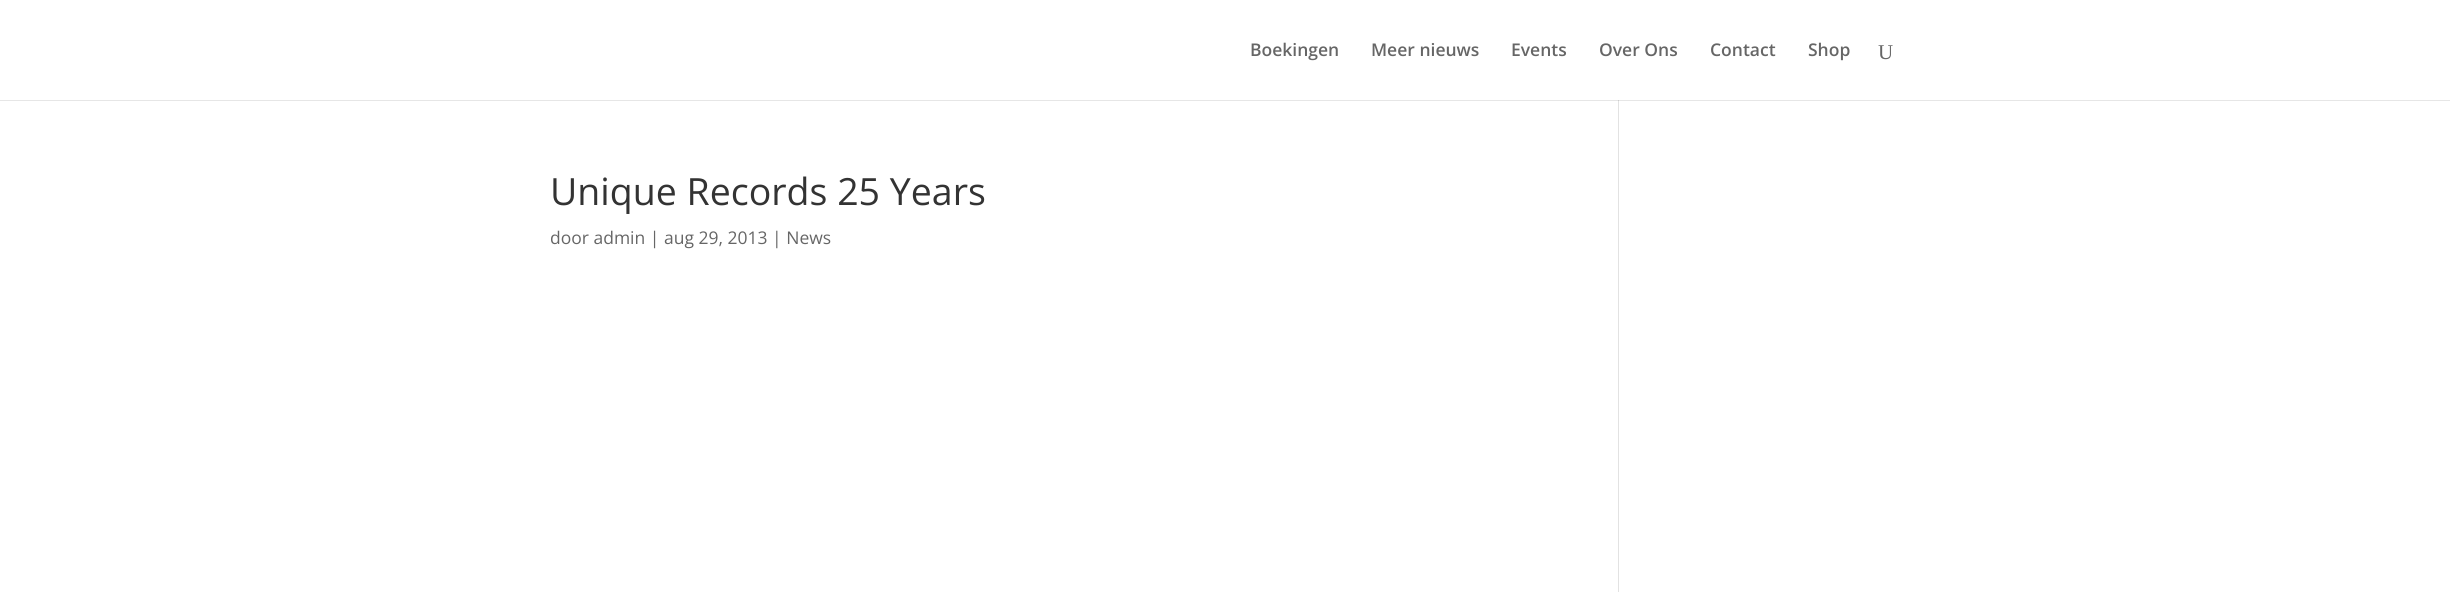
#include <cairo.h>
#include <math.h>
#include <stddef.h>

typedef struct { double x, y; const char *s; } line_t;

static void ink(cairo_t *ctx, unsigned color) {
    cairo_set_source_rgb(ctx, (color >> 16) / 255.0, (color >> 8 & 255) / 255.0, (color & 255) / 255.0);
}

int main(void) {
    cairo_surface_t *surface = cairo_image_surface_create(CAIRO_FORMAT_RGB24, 2450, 592);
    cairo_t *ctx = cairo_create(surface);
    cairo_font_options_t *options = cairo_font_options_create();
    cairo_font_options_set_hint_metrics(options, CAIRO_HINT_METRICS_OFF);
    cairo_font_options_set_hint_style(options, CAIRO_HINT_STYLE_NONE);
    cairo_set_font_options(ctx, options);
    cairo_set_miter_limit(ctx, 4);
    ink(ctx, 0xFFFFFF);
    cairo_paint(ctx);
    ink(ctx, 0xE6E6E6);
    cairo_rectangle(ctx, 0, 100, 2450, 1);
    cairo_fill(ctx);
    cairo_select_font_face(ctx, "Open Sans SemiBold", CAIRO_FONT_SLANT_NORMAL, CAIRO_FONT_WEIGHT_NORMAL);
    cairo_set_font_size(ctx, 17.5);
    ink(ctx, 0x666666);
    {
        static const line_t items[] = {
            {1250, 56, "Boekingen"},
            {1371, 56, "Meer nieuws"},
            {1511, 56, "Events"},
            {1599, 56, "Over Ons"},
            {1710, 56, "Contact"},
            {1808, 56, "Shop"},
        };
        for (size_t i = 0; i < sizeof items / sizeof *items; i++) {
            cairo_move_to(ctx, items[i].x, items[i].y);
            cairo_show_text(ctx, items[i].s);
        }
    }
    cairo_select_font_face(ctx, "Liberation Serif", CAIRO_FONT_SLANT_NORMAL, CAIRO_FONT_WEIGHT_NORMAL);
    cairo_set_font_size(ctx, 21);
    cairo_move_to(ctx, 1878, 59);
    cairo_show_text(ctx, "U");
    cairo_select_font_face(ctx, "Open Sans", CAIRO_FONT_SLANT_NORMAL, CAIRO_FONT_WEIGHT_NORMAL);
    cairo_set_font_size(ctx, 37.5);
    ink(ctx, 0x333333);
    cairo_move_to(ctx, 550, 205);
    cairo_show_text(ctx, "Unique Records 25 Years");
    cairo_set_font_size(ctx, 17.5);
    ink(ctx, 0x666666);
    cairo_move_to(ctx, 550, 244);
    cairo_show_text(ctx, "door admin | aug 29, 2013 | News");
    ink(ctx, 0xE2E2E2);
    cairo_rectangle(ctx, 1618, 100, 1, 492);
    cairo_fill(ctx);
    ink(ctx, 0xCBCBCB);
    cairo_rectangle(ctx, 1618, 100, 1, 1);
    cairo_fill(ctx);
    cairo_surface_write_to_png(surface, "image.png");
    cairo_font_options_destroy(options);
    cairo_destroy(ctx);
    cairo_surface_destroy(surface);
    return 0;
}
